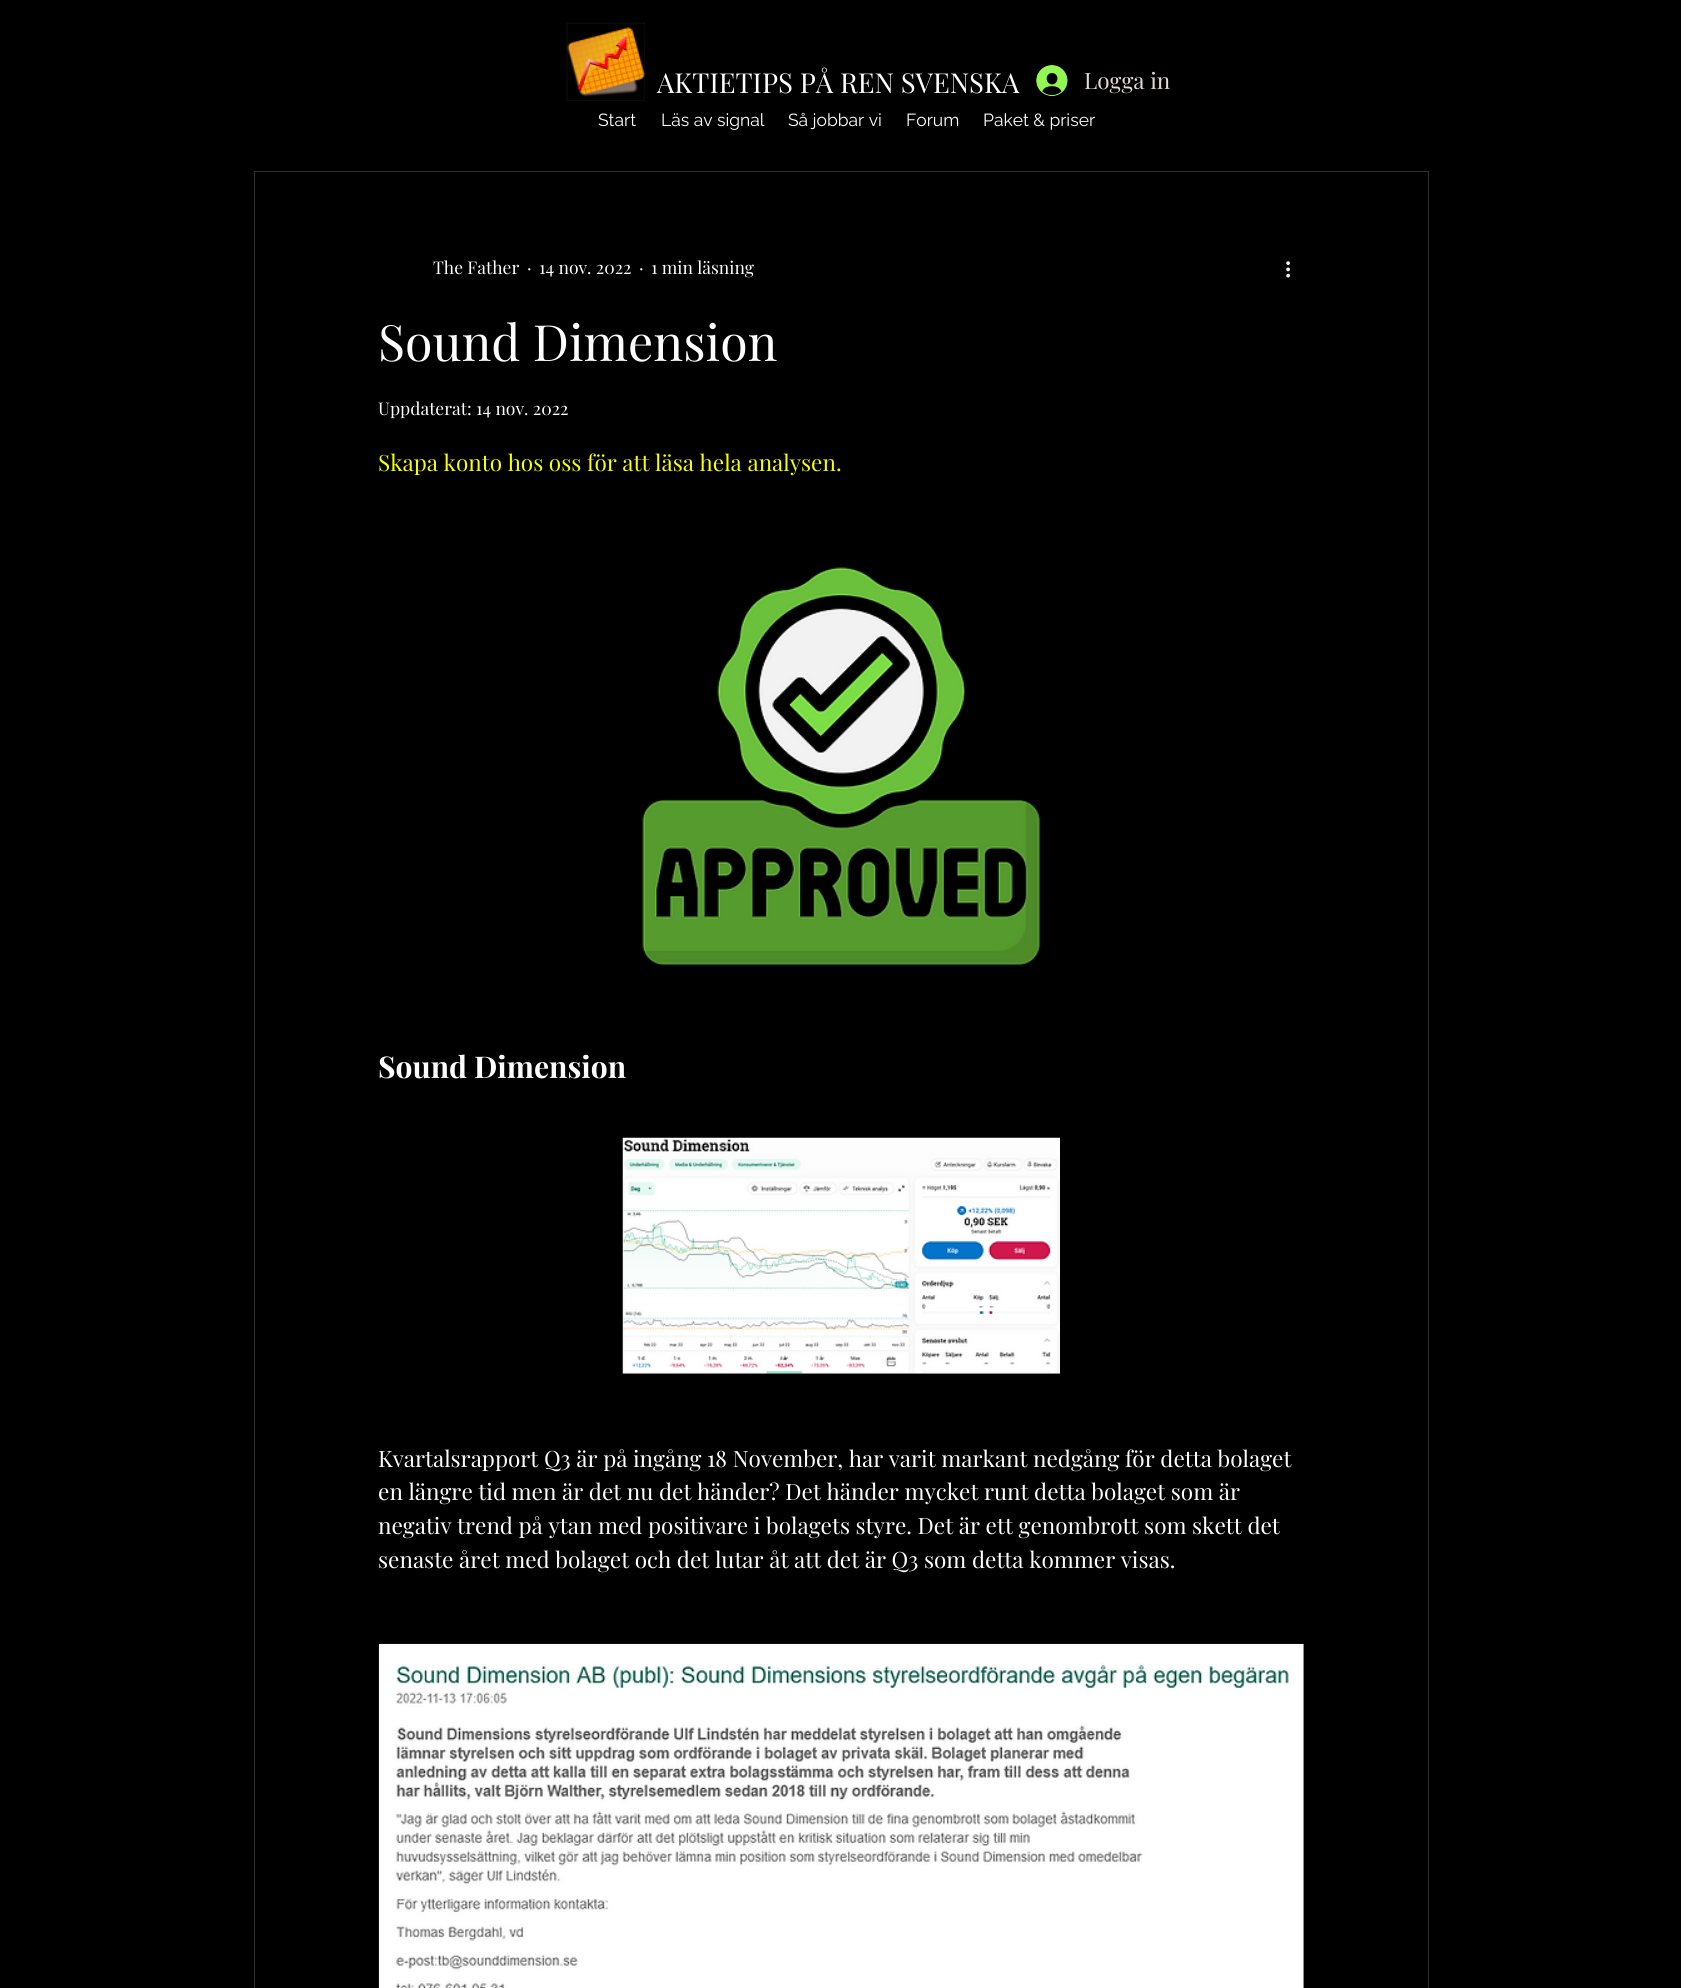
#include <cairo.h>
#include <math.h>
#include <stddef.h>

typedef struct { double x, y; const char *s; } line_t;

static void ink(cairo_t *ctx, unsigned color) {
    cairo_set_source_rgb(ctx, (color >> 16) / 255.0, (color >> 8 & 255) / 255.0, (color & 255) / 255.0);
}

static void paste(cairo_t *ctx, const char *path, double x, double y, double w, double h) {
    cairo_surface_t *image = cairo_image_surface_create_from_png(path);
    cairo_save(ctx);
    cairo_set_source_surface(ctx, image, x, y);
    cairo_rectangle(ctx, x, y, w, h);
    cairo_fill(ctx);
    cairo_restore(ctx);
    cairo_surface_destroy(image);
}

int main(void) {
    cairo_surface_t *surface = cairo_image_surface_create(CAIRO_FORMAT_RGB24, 1681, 1988);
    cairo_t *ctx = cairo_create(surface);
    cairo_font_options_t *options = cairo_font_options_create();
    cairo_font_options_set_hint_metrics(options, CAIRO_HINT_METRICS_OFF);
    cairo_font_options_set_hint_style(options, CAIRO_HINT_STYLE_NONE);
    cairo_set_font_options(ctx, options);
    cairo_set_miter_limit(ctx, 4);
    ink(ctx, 0x000000);
    cairo_paint(ctx);
    paste(ctx, "media/1.png", 566, 22, 79, 79);
    cairo_select_font_face(ctx, "Playfair Display", CAIRO_FONT_SLANT_NORMAL, CAIRO_FONT_WEIGHT_NORMAL);
    cairo_set_font_size(ctx, 27.5);
    ink(ctx, 0xFFFFFF);
    cairo_move_to(ctx, 657, 93);
    cairo_show_text(ctx, "AKTIETIPS PÅ REN SVENSKA");
    paste(ctx, "media/2.png", 1036, 65, 32, 31);
    cairo_set_font_size(ctx, 22.5);
    ink(ctx, 0xE6D8D7);
    cairo_move_to(ctx, 1084, 89);
    cairo_show_text(ctx, "Logga in");
    cairo_select_font_face(ctx, "Raleway", CAIRO_FONT_SLANT_NORMAL, CAIRO_FONT_WEIGHT_NORMAL);
    cairo_set_font_size(ctx, 17.5);
    ink(ctx, 0xFFFFFF);
    {
        static const line_t items[] = {
            {598, 126, "Start"},
            {661, 126, "Läs av signal"},
            {788, 126, "Så jobbar vi"},
            {906, 126, "Forum"},
            {983, 126, "Paket & priser"},
        };
        for (size_t i = 0; i < sizeof items / sizeof *items; i++) {
            cairo_move_to(ctx, items[i].x, items[i].y);
            cairo_show_text(ctx, items[i].s);
        }
    }
    cairo_rectangle(ctx, 254.5, 171.5, 1174, 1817);
    ink(ctx, 0x303030);
    cairo_set_line_width(ctx, 1);
    cairo_stroke(ctx);
    cairo_select_font_face(ctx, "Playfair Display", CAIRO_FONT_SLANT_NORMAL, CAIRO_FONT_WEIGHT_NORMAL);
    ink(ctx, 0xFFFFFF);
    {
        static const line_t items[] = {
            {433, 274, "The Father"},
            {527, 274, "·"},
            {539, 274, "14 nov. 2022"},
            {639, 274, "·"},
            {651, 274, "1 min läsning"},
        };
        for (size_t i = 0; i < sizeof items / sizeof *items; i++) {
            cairo_move_to(ctx, items[i].x, items[i].y);
            cairo_show_text(ctx, items[i].s);
        }
    }
    paste(ctx, "media/3.png", 1286, 261, 4, 17);
    cairo_set_font_size(ctx, 50);
    cairo_move_to(ctx, 378, 361);
    cairo_show_text(ctx, "Sound Dimension");
    cairo_set_font_size(ctx, 17.5);
    cairo_move_to(ctx, 378, 415);
    cairo_show_text(ctx, "Uppdaterat: 14 nov. 2022");
    cairo_set_font_size(ctx, 22.5);
    ink(ctx, 0xF8FF00);
    cairo_move_to(ctx, 378, 471);
    cairo_show_text(ctx, "Skapa konto hos oss för att läsa hela analysen.");
    paste(ctx, "media/4.png", 642, 567, 399, 399);
    cairo_select_font_face(ctx, "Playfair Display", CAIRO_FONT_SLANT_NORMAL, CAIRO_FONT_WEIGHT_BOLD);
    cairo_set_font_size(ctx, 30);
    ink(ctx, 0xFFFFFF);
    cairo_move_to(ctx, 378, 1078);
    cairo_show_text(ctx, "Sound Dimension");
    paste(ctx, "media/5.png", 622, 1137, 438, 237);
    cairo_select_font_face(ctx, "Playfair Display", CAIRO_FONT_SLANT_NORMAL, CAIRO_FONT_WEIGHT_NORMAL);
    cairo_set_font_size(ctx, 22.5);
    {
        static const line_t items[] = {
            {378, 1467, "Kvartalsrapport Q3 är på ingång 18 November, har varit markant nedgång för detta bolaget"},
            {378, 1500, "en längre tid men är det nu det händer? Det händer mycket runt detta bolaget som är"},
            {378, 1534, "negativ trend på ytan med positivare i bolagets styre. Det är ett genombrott som skett det"},
            {378, 1568, "senaste året med bolaget och det lutar åt att det är Q3 som detta kommer visas."},
        };
        for (size_t i = 0; i < sizeof items / sizeof *items; i++) {
            cairo_move_to(ctx, items[i].x, items[i].y);
            cairo_show_text(ctx, items[i].s);
        }
    }
    paste(ctx, "media/6.png", 378, 1643, 926, 345);
    cairo_surface_write_to_png(surface, "image.png");
    cairo_font_options_destroy(options);
    cairo_destroy(ctx);
    cairo_surface_destroy(surface);
    return 0;
}
